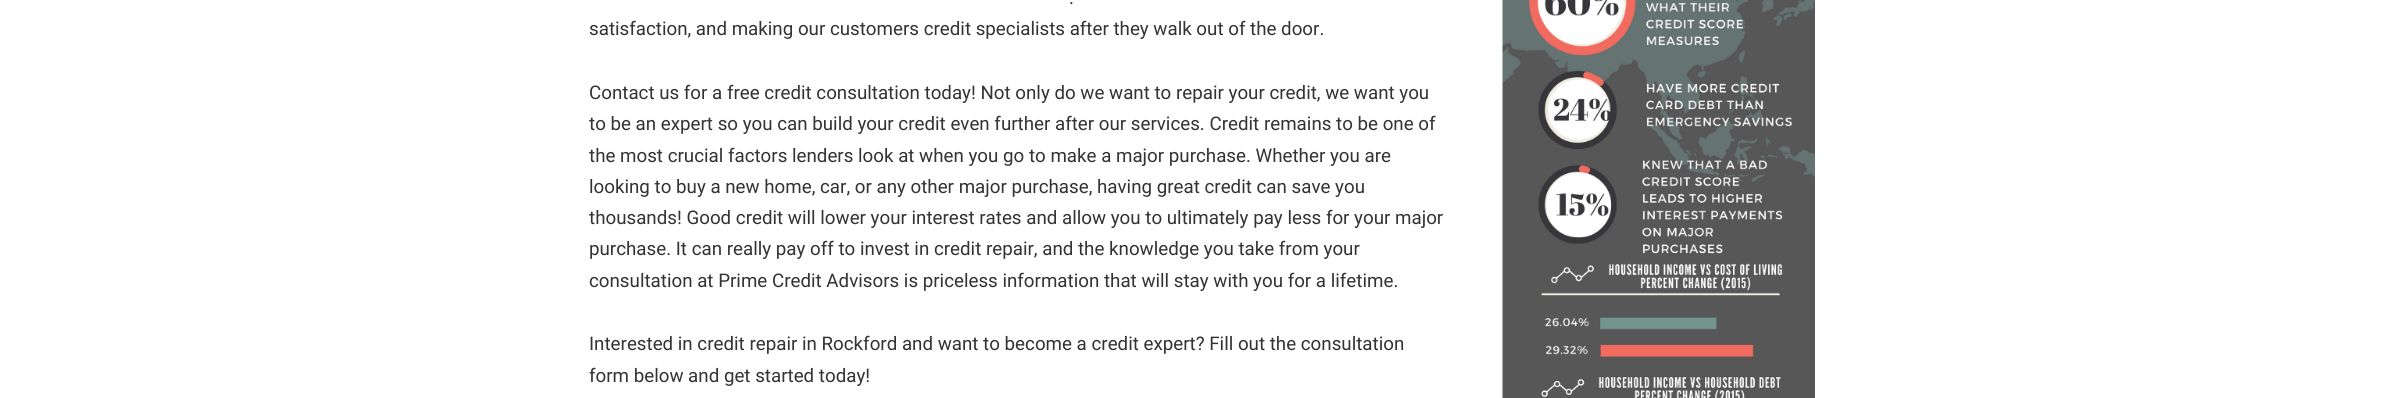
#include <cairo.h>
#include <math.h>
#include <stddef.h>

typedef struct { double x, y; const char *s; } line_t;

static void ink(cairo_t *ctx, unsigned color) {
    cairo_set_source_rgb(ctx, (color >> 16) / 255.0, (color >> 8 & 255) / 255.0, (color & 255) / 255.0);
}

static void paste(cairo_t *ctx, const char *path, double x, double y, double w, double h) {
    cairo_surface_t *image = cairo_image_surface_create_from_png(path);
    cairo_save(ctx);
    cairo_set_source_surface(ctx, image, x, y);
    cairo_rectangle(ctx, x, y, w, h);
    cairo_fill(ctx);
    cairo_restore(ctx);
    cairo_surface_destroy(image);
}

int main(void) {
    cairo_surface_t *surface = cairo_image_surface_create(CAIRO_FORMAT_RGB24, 2403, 398);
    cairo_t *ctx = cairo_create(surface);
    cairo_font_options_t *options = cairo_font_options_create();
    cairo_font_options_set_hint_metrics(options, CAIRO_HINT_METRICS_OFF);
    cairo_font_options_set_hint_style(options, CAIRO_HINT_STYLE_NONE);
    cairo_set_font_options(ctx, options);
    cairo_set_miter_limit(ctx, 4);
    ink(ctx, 0xFFFFFF);
    cairo_paint(ctx);
    cairo_select_font_face(ctx, "Roboto", CAIRO_FONT_SLANT_NORMAL, CAIRO_FONT_WEIGHT_NORMAL);
    cairo_set_font_size(ctx, 18.75);
    ink(ctx, 0x333333);
    {
        static const line_t items[] = {
            {1069, 4, "."},
            {589, 35, "satisfaction, and making our customers credit specialists after they walk out of the door."},
            {589, 99, "Contact us for a free credit consultation today! Not only do we want to repair your credit, we want you"},
            {589, 130, "to be an expert so you can build your credit even further after our services. Credit remains to be one of"},
            {589, 162, "the most crucial factors lenders look at when you go to make a major purchase. Whether you are"},
            {589, 193, "looking to buy a new home, car, or any other major purchase, having great credit can save you"},
            {589, 224, "thousands! Good credit will lower your interest rates and allow you to ultimately pay less for your major"},
            {589, 255, "purchase. It can really pay off to invest in credit repair, and the knowledge you take from your"},
            {589, 287, "consultation at Prime Credit Advisors is priceless information that will stay with you for a lifetime."},
            {589, 350, "Interested in credit repair in Rockford and want to become a credit expert? Fill out the consultation"},
            {589, 382, "form below and get started today!"},
        };
        for (size_t i = 0; i < sizeof items / sizeof *items; i++) {
            cairo_move_to(ctx, items[i].x, items[i].y);
            cairo_show_text(ctx, items[i].s);
        }
    }
    paste(ctx, "media/1.png", 1502, 0, 313, 398);
    cairo_surface_write_to_png(surface, "image.png");
    cairo_font_options_destroy(options);
    cairo_destroy(ctx);
    cairo_surface_destroy(surface);
    return 0;
}
